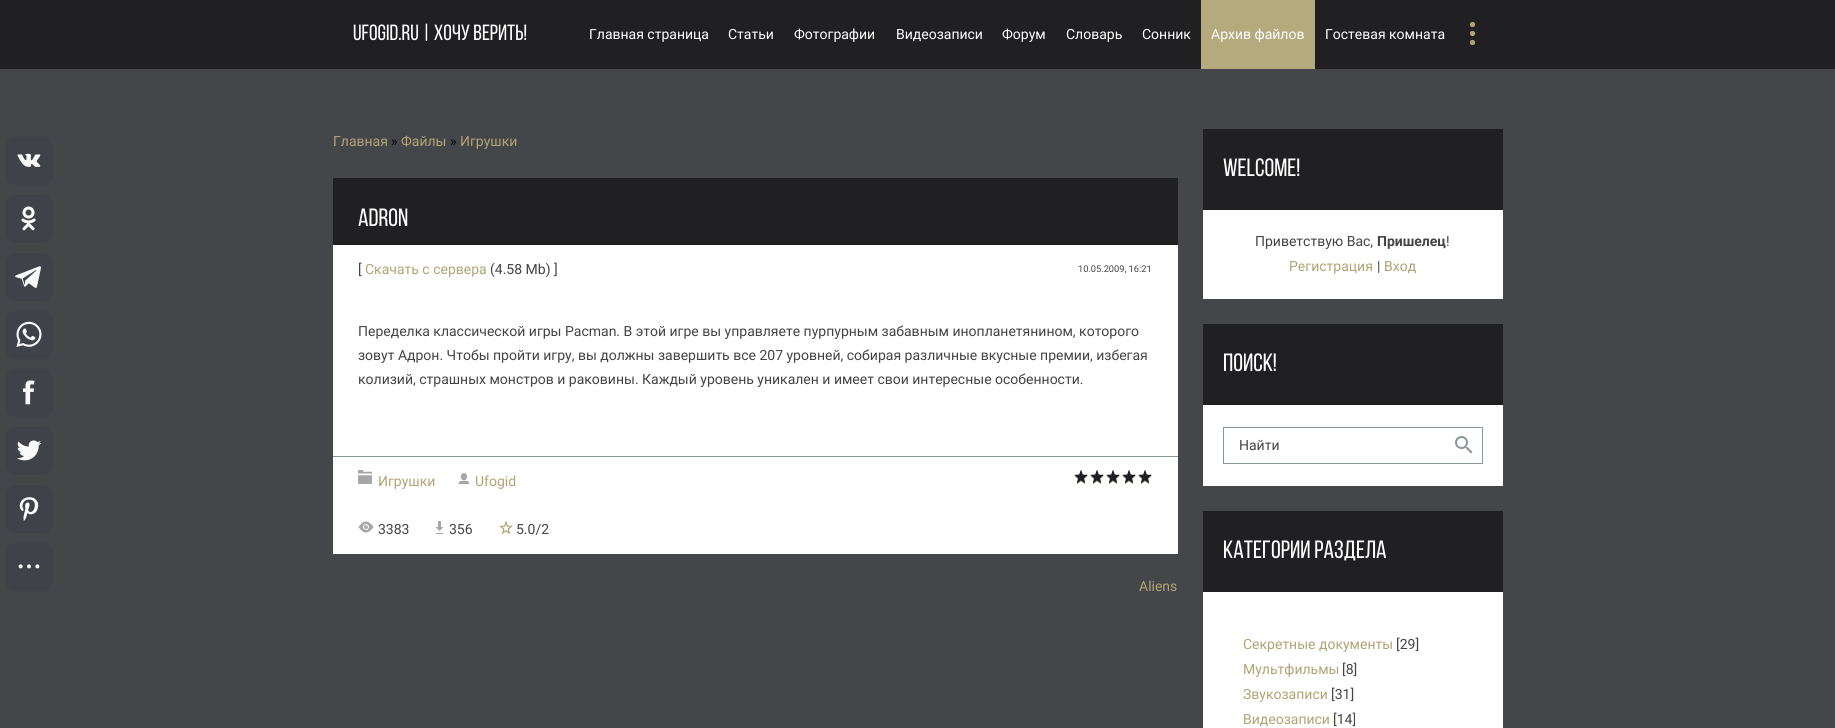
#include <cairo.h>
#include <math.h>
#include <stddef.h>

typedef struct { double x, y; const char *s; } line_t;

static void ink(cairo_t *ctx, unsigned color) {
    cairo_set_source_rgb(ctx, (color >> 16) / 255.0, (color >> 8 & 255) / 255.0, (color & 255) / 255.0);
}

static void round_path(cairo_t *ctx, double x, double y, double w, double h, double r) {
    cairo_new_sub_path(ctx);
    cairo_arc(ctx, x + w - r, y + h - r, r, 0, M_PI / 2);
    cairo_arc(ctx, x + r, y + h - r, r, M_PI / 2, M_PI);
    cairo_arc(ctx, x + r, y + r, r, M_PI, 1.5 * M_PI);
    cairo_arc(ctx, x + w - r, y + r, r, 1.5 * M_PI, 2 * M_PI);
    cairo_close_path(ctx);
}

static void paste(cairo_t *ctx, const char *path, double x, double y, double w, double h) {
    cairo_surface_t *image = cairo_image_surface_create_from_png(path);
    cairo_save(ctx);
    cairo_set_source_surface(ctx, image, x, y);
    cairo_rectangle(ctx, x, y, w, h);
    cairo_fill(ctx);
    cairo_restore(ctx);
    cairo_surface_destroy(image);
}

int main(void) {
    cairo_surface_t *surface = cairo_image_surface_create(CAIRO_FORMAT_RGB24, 1835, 728);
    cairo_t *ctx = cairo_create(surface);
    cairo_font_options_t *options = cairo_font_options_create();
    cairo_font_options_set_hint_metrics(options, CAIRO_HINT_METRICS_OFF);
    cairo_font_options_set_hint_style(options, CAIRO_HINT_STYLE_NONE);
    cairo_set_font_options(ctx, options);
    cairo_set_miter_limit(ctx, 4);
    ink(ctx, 0x45464A);
    cairo_paint(ctx);
    ink(ctx, 0x3F4248);
    round_path(ctx, 5, 137, 48, 48, 10);
    cairo_fill(ctx);
    paste(ctx, "media/1.png", 17, 153, 24, 14);
    round_path(ctx, 5, 195, 48, 48, 10);
    cairo_fill(ctx);
    paste(ctx, "media/2.png", 21, 206, 15, 25);
    round_path(ctx, 5, 253, 48, 48, 10);
    cairo_fill(ctx);
    paste(ctx, "media/3.png", 15, 266, 26, 22);
    round_path(ctx, 5, 311, 48, 48, 10);
    cairo_fill(ctx);
    paste(ctx, "media/4.png", 16, 321, 26, 26);
    round_path(ctx, 5, 369, 48, 48, 10);
    cairo_fill(ctx);
    paste(ctx, "media/5.png", 23, 380, 12, 25);
    round_path(ctx, 5, 427, 48, 48, 10);
    cairo_fill(ctx);
    paste(ctx, "media/6.png", 17, 440, 25, 21);
    round_path(ctx, 5, 485, 48, 48, 10);
    cairo_fill(ctx);
    paste(ctx, "media/7.png", 19, 497, 20, 24);
    round_path(ctx, 5, 543, 48, 48, 10);
    cairo_fill(ctx);
    paste(ctx, "media/8.png", 18, 564, 22, 5);
    ink(ctx, 0x202022);
    cairo_rectangle(ctx, 0, 0, 1835, 69);
    cairo_fill(ctx);
    cairo_select_font_face(ctx, "Bebas Neue", CAIRO_FONT_SLANT_NORMAL, CAIRO_FONT_WEIGHT_NORMAL);
    cairo_set_font_size(ctx, 22);
    ink(ctx, 0xFFFFFF);
    cairo_move_to(ctx, 353, 40);
    cairo_show_text(ctx, "UFOGID.RU | ХОЧУ ВЕРИТЬ!");
    cairo_select_font_face(ctx, "Roboto", CAIRO_FONT_SLANT_NORMAL, CAIRO_FONT_WEIGHT_NORMAL);
    cairo_set_font_size(ctx, 14);
    {
        static const line_t items[] = {
            {589, 39, "Главная страница"},
            {728, 39, "Статьи"},
            {794, 39, "Фотографии"},
            {896, 39, "Видеозаписи"},
            {1002, 39, "Форум"},
            {1066, 39, "Словарь"},
            {1142, 39, "Сонник"},
        };
        for (size_t i = 0; i < sizeof items / sizeof *items; i++) {
            cairo_move_to(ctx, items[i].x, items[i].y);
            cairo_show_text(ctx, items[i].s);
        }
    }
    ink(ctx, 0xB5AA7D);
    cairo_rectangle(ctx, 1201, 0, 114, 69);
    cairo_fill(ctx);
    ink(ctx, 0xFFFFFF);
    cairo_move_to(ctx, 1211, 39);
    cairo_show_text(ctx, "Архив файлов");
    cairo_move_to(ctx, 1325, 39);
    cairo_show_text(ctx, "Гостевая комната");
    ink(ctx, 0xB0A474);
    round_path(ctx, 1470, 22, 5, 5, 2);
    cairo_fill(ctx);
    round_path(ctx, 1470, 31, 5, 5, 2);
    cairo_fill(ctx);
    round_path(ctx, 1470, 40, 5, 5, 2);
    cairo_fill(ctx);
    cairo_move_to(ctx, 333, 146);
    cairo_show_text(ctx, "Главная");
    ink(ctx, 0x000000);
    cairo_move_to(ctx, 391, 146);
    cairo_show_text(ctx, "»");
    ink(ctx, 0xB0A474);
    cairo_move_to(ctx, 401, 146);
    cairo_show_text(ctx, "Файлы");
    ink(ctx, 0x000000);
    cairo_move_to(ctx, 450, 146);
    cairo_show_text(ctx, "»");
    ink(ctx, 0xB0A474);
    cairo_move_to(ctx, 460, 146);
    cairo_show_text(ctx, "Игрушки");
    ink(ctx, 0x202022);
    cairo_rectangle(ctx, 333, 178, 845, 67);
    cairo_fill(ctx);
    cairo_select_font_face(ctx, "Bebas Neue", CAIRO_FONT_SLANT_NORMAL, CAIRO_FONT_WEIGHT_NORMAL);
    cairo_set_font_size(ctx, 25);
    ink(ctx, 0xFFFFFF);
    cairo_move_to(ctx, 358, 226);
    cairo_show_text(ctx, "ADRON");
    cairo_rectangle(ctx, 333, 245, 845, 309);
    cairo_fill(ctx);
    cairo_select_font_face(ctx, "Roboto", CAIRO_FONT_SLANT_NORMAL, CAIRO_FONT_WEIGHT_NORMAL);
    cairo_set_font_size(ctx, 14);
    ink(ctx, 0x444444);
    cairo_move_to(ctx, 358, 274);
    cairo_show_text(ctx, "[");
    ink(ctx, 0xB0A474);
    cairo_move_to(ctx, 365, 274);
    cairo_show_text(ctx, "Скачать с сервера");
    ink(ctx, 0x444444);
    cairo_move_to(ctx, 490, 274);
    cairo_show_text(ctx, "(4.58 Mb) ]");
    cairo_set_font_size(ctx, 9.25);
    cairo_move_to(ctx, 1078, 272);
    cairo_show_text(ctx, "10.05.2009, 16:21");
    cairo_set_font_size(ctx, 14);
    {
        static const line_t items[] = {
            {358, 336, "Переделка классической игры Pacman. В этой игре вы управляете пурпурным забавным инопланетянином, которого"},
            {358, 360, "зовут Адрон. Чтобы пройти игру, вы должны завершить все 207 уровней, собирая различные вкусные премии, избегая"},
            {358, 384, "колизий, страшных монстров и раковины. Каждый уровень уникален и имеет свои интересные особенности."},
        };
        for (size_t i = 0; i < sizeof items / sizeof *items; i++) {
            cairo_move_to(ctx, items[i].x, items[i].y);
            cairo_show_text(ctx, items[i].s);
        }
    }
    ink(ctx, 0x869898);
    cairo_rectangle(ctx, 333, 456, 845, 1);
    cairo_fill(ctx);
    paste(ctx, "media/9.png", 358, 470, 14, 14);
    ink(ctx, 0xB0A474);
    cairo_move_to(ctx, 378, 486);
    cairo_show_text(ctx, "Игрушки");
    paste(ctx, "media/10.png", 458, 473, 11, 11);
    cairo_move_to(ctx, 475, 486);
    cairo_show_text(ctx, "Ufogid");
    paste(ctx, "media/11.png", 1074, 471, 78, 14);
    paste(ctx, "media/12.png", 1074, 470, 78, 14);
    paste(ctx, "media/13.png", 358, 521, 16, 12);
    ink(ctx, 0x444444);
    cairo_move_to(ctx, 378, 534);
    cairo_show_text(ctx, "3383");
    paste(ctx, "media/14.png", 435, 521, 9, 13);
    cairo_move_to(ctx, 449, 534);
    cairo_show_text(ctx, "356");
    paste(ctx, "media/15.png", 499, 521, 14, 14);
    cairo_move_to(ctx, 516, 534);
    cairo_show_text(ctx, "5.0/2");
    ink(ctx, 0xB0A474);
    cairo_move_to(ctx, 1139, 591);
    cairo_show_text(ctx, "Aliens");
    ink(ctx, 0xFFFFFF);
    cairo_rectangle(ctx, 1203, 210, 300, 89);
    cairo_fill(ctx);
    ink(ctx, 0x202022);
    cairo_rectangle(ctx, 1203, 129, 300, 81);
    cairo_fill(ctx);
    cairo_select_font_face(ctx, "Bebas Neue", CAIRO_FONT_SLANT_NORMAL, CAIRO_FONT_WEIGHT_NORMAL);
    cairo_set_font_size(ctx, 25);
    ink(ctx, 0xFFFFFF);
    cairo_move_to(ctx, 1223, 176);
    cairo_show_text(ctx, "WELCOME!");
    cairo_select_font_face(ctx, "Roboto", CAIRO_FONT_SLANT_NORMAL, CAIRO_FONT_WEIGHT_NORMAL);
    cairo_set_font_size(ctx, 14);
    ink(ctx, 0x444444);
    cairo_move_to(ctx, 1255, 246);
    cairo_show_text(ctx, "Приветствую Вас,");
    cairo_select_font_face(ctx, "Roboto", CAIRO_FONT_SLANT_NORMAL, CAIRO_FONT_WEIGHT_BOLD);
    cairo_move_to(ctx, 1377, 246);
    cairo_show_text(ctx, "Пришелец");
    cairo_select_font_face(ctx, "Roboto", CAIRO_FONT_SLANT_NORMAL, CAIRO_FONT_WEIGHT_NORMAL);
    cairo_move_to(ctx, 1446, 246);
    cairo_show_text(ctx, "!");
    ink(ctx, 0xB0A474);
    cairo_move_to(ctx, 1289, 271);
    cairo_show_text(ctx, "Регистрация");
    ink(ctx, 0x444444);
    cairo_move_to(ctx, 1377, 271);
    cairo_show_text(ctx, "|");
    ink(ctx, 0xB0A474);
    cairo_move_to(ctx, 1384, 271);
    cairo_show_text(ctx, "Вход");
    ink(ctx, 0xFFFFFF);
    cairo_rectangle(ctx, 1203, 405, 300, 81);
    cairo_fill(ctx);
    ink(ctx, 0x202022);
    cairo_rectangle(ctx, 1203, 324, 300, 81);
    cairo_fill(ctx);
    cairo_select_font_face(ctx, "Bebas Neue", CAIRO_FONT_SLANT_NORMAL, CAIRO_FONT_WEIGHT_NORMAL);
    cairo_set_font_size(ctx, 25);
    ink(ctx, 0xFFFFFF);
    cairo_move_to(ctx, 1223, 371);
    cairo_show_text(ctx, "ПОИСК!");
    cairo_rectangle(ctx, 1223.5, 427.5, 259, 36);
    ink(ctx, 0x879999);
    cairo_set_line_width(ctx, 1);
    cairo_stroke(ctx);
    cairo_select_font_face(ctx, "Roboto", CAIRO_FONT_SLANT_NORMAL, CAIRO_FONT_WEIGHT_NORMAL);
    cairo_set_font_size(ctx, 14);
    ink(ctx, 0x444444);
    cairo_move_to(ctx, 1239, 450);
    cairo_show_text(ctx, "Найти");
    paste(ctx, "media/16.png", 1455, 436, 18, 18);
    ink(ctx, 0xFFFFFF);
    cairo_rectangle(ctx, 1203, 592, 300, 136);
    cairo_fill(ctx);
    ink(ctx, 0x202022);
    cairo_rectangle(ctx, 1203, 511, 300, 81);
    cairo_fill(ctx);
    cairo_select_font_face(ctx, "Bebas Neue", CAIRO_FONT_SLANT_NORMAL, CAIRO_FONT_WEIGHT_NORMAL);
    cairo_set_font_size(ctx, 25);
    ink(ctx, 0xFFFFFF);
    cairo_move_to(ctx, 1223, 558);
    cairo_show_text(ctx, "КАТЕГОРИИ РАЗДЕЛА");
    cairo_select_font_face(ctx, "Roboto", CAIRO_FONT_SLANT_NORMAL, CAIRO_FONT_WEIGHT_NORMAL);
    cairo_set_font_size(ctx, 14);
    ink(ctx, 0xB0A474);
    cairo_move_to(ctx, 1243, 649);
    cairo_show_text(ctx, "Секретные документы");
    ink(ctx, 0x444444);
    cairo_move_to(ctx, 1396, 649);
    cairo_show_text(ctx, "[29]");
    ink(ctx, 0xB0A474);
    cairo_move_to(ctx, 1243, 674);
    cairo_show_text(ctx, "Мультфильмы");
    ink(ctx, 0x444444);
    cairo_move_to(ctx, 1342, 674);
    cairo_show_text(ctx, "[8]");
    ink(ctx, 0xB0A474);
    cairo_move_to(ctx, 1243, 699);
    cairo_show_text(ctx, "Звукозаписи");
    ink(ctx, 0x444444);
    cairo_move_to(ctx, 1331, 699);
    cairo_show_text(ctx, "[31]");
    ink(ctx, 0xB0A474);
    cairo_move_to(ctx, 1243, 724);
    cairo_show_text(ctx, "Видеозаписи");
    ink(ctx, 0x444444);
    cairo_move_to(ctx, 1333, 724);
    cairo_show_text(ctx, "[14]");
    cairo_surface_write_to_png(surface, "image.png");
    cairo_font_options_destroy(options);
    cairo_destroy(ctx);
    cairo_surface_destroy(surface);
    return 0;
}
